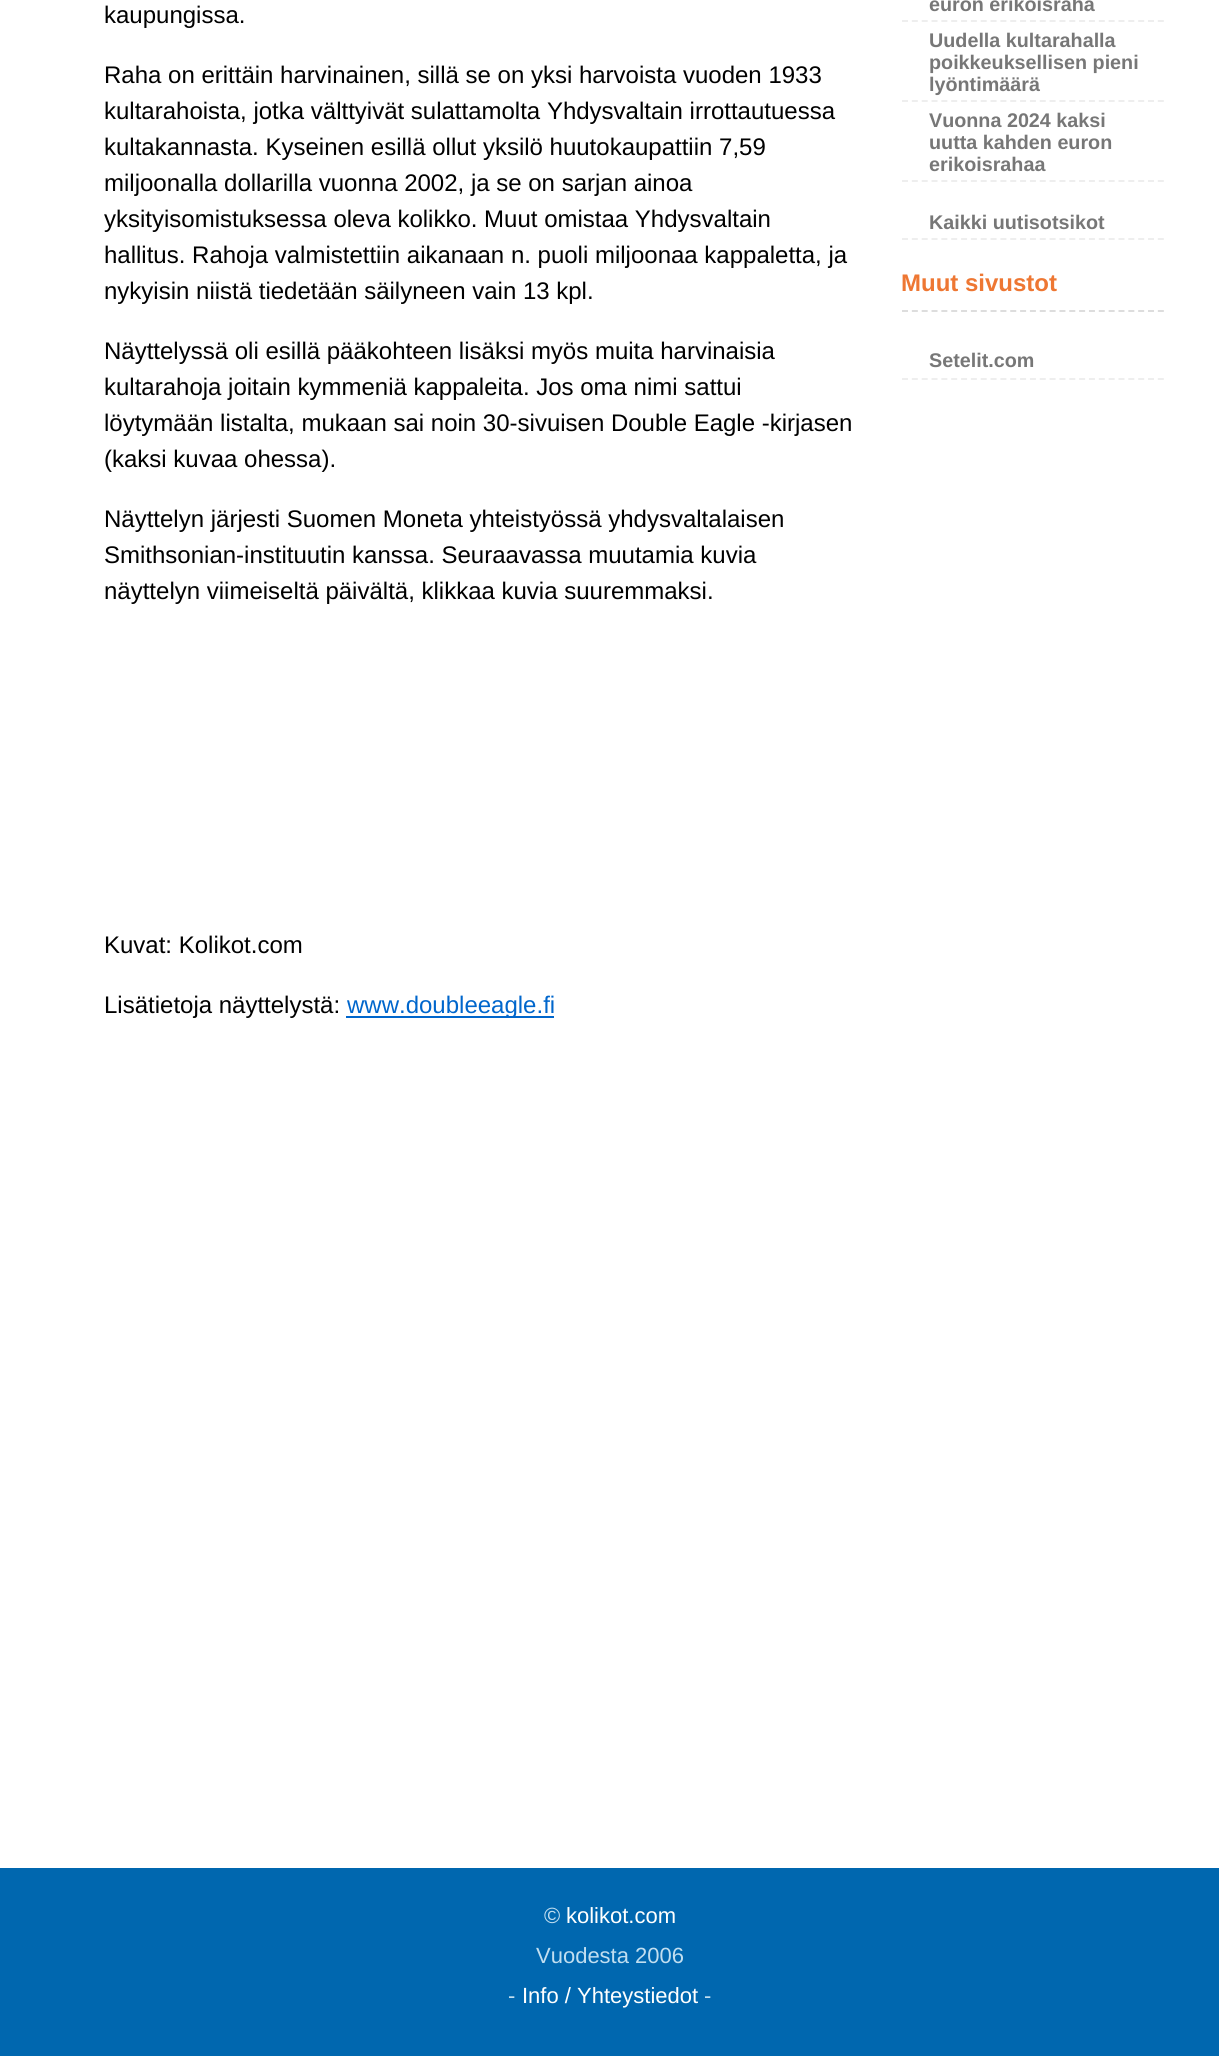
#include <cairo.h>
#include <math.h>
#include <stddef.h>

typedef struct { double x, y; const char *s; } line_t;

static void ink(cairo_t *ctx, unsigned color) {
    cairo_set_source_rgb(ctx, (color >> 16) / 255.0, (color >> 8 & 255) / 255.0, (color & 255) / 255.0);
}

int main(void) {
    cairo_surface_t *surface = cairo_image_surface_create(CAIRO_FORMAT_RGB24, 1219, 2056);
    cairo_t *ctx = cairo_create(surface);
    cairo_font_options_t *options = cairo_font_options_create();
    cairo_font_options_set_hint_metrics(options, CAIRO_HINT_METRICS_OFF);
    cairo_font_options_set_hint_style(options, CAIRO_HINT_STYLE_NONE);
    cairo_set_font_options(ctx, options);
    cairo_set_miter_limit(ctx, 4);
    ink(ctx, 0x0067AF);
    cairo_paint(ctx);
    ink(ctx, 0xFFFFFF);
    cairo_rectangle(ctx, 0, 0, 1219, 1868);
    cairo_fill(ctx);
    cairo_select_font_face(ctx, "Liberation Sans", CAIRO_FONT_SLANT_NORMAL, CAIRO_FONT_WEIGHT_NORMAL);
    cairo_set_font_size(ctx, 24);
    ink(ctx, 0x000000);
    {
        static const line_t items[] = {
            {104, 23, "kaupungissa."},
            {104, 83, "Raha on erittäin harvinainen, sillä se on yksi harvoista vuoden 1933"},
            {104, 119, "kultarahoista, jotka välttyivät sulattamolta Yhdysvaltain irrottautuessa"},
            {104, 155, "kultakannasta. Kyseinen esillä ollut yksilö huutokaupattiin 7,59"},
            {104, 191, "miljoonalla dollarilla vuonna 2002, ja se on sarjan ainoa"},
            {104, 227, "yksityisomistuksessa oleva kolikko. Muut omistaa Yhdysvaltain"},
            {104, 263, "hallitus. Rahoja valmistettiin aikanaan n. puoli miljoonaa kappaletta, ja"},
            {104, 299, "nykyisin niistä tiedetään säilyneen vain 13 kpl."},
            {104, 359, "Näyttelyssä oli esillä pääkohteen lisäksi myös muita harvinaisia"},
            {104, 395, "kultarahoja joitain kymmeniä kappaleita. Jos oma nimi sattui"},
            {104, 431, "löytymään listalta, mukaan sai noin 30-sivuisen Double Eagle -kirjasen"},
            {104, 467, "(kaksi kuvaa ohessa)."},
            {104, 527, "Näyttelyn järjesti Suomen Moneta yhteistyössä yhdysvaltalaisen"},
            {104, 563, "Smithsonian-instituutin kanssa. Seuraavassa muutamia kuvia"},
            {104, 599, "näyttelyn viimeiseltä päivältä, klikkaa kuvia suuremmaksi."},
            {104, 953, "Kuvat: Kolikot.com"},
            {104, 1013, "Lisätietoja näyttelystä:"},
        };
        for (size_t i = 0; i < sizeof items / sizeof *items; i++) {
            cairo_move_to(ctx, items[i].x, items[i].y);
            cairo_show_text(ctx, items[i].s);
        }
    }
    ink(ctx, 0x0066CC);
    cairo_rectangle(ctx, 346, 1016, 208, 2);
    cairo_fill(ctx);
    cairo_move_to(ctx, 347, 1013);
    cairo_show_text(ctx, "www.doubleeagle.fi");
    cairo_new_path(ctx);
    cairo_move_to(ctx, 902, 21);
    cairo_line_to(ctx, 1164, 21);
    ink(ctx, 0xEEEEEE);
    cairo_set_dash(ctx, (double[]){6, 3.84}, 2, 0);
    cairo_stroke(ctx);
    cairo_select_font_face(ctx, "Liberation Sans", CAIRO_FONT_SLANT_NORMAL, CAIRO_FONT_WEIGHT_BOLD);
    cairo_set_font_size(ctx, 19.75);
    ink(ctx, 0x777777);
    cairo_move_to(ctx, 929, 11);
    cairo_show_text(ctx, "euron erikoisraha");
    cairo_new_path(ctx);
    cairo_move_to(ctx, 902, 101);
    cairo_line_to(ctx, 1164, 101);
    ink(ctx, 0xEEEEEE);
    cairo_stroke(ctx);
    ink(ctx, 0x777777);
    {
        static const line_t items[] = {
            {929, 47, "Uudella kultarahalla"},
            {929, 69, "poikkeuksellisen pieni"},
            {929, 91, "lyöntimäärä"},
        };
        for (size_t i = 0; i < sizeof items / sizeof *items; i++) {
            cairo_move_to(ctx, items[i].x, items[i].y);
            cairo_show_text(ctx, items[i].s);
        }
    }
    cairo_new_path(ctx);
    cairo_move_to(ctx, 902, 181);
    cairo_line_to(ctx, 1164, 181);
    ink(ctx, 0xEEEEEE);
    cairo_stroke(ctx);
    ink(ctx, 0x777777);
    {
        static const line_t items[] = {
            {929, 127, "Vuonna 2024 kaksi"},
            {929, 149, "uutta kahden euron"},
            {929, 171, "erikoisrahaa"},
        };
        for (size_t i = 0; i < sizeof items / sizeof *items; i++) {
            cairo_move_to(ctx, items[i].x, items[i].y);
            cairo_show_text(ctx, items[i].s);
        }
    }
    cairo_new_path(ctx);
    cairo_move_to(ctx, 902, 239);
    cairo_line_to(ctx, 1164, 239);
    ink(ctx, 0xEEEEEE);
    cairo_stroke(ctx);
    ink(ctx, 0x777777);
    cairo_move_to(ctx, 929, 229);
    cairo_show_text(ctx, "Kaikki uutisotsikot");
    cairo_new_path(ctx);
    cairo_move_to(ctx, 902, 311);
    cairo_line_to(ctx, 1164, 311);
    ink(ctx, 0xDDDDDD);
    cairo_stroke(ctx);
    cairo_set_font_size(ctx, 24);
    ink(ctx, 0xEE7733);
    cairo_move_to(ctx, 901, 291);
    cairo_show_text(ctx, "Muut sivustot");
    cairo_new_path(ctx);
    cairo_move_to(ctx, 902, 379);
    cairo_line_to(ctx, 1164, 379);
    ink(ctx, 0xEEEEEE);
    cairo_stroke(ctx);
    cairo_set_font_size(ctx, 19.75);
    ink(ctx, 0x777777);
    cairo_move_to(ctx, 929, 367);
    cairo_show_text(ctx, "Setelit.com");
    cairo_select_font_face(ctx, "Liberation Sans", CAIRO_FONT_SLANT_NORMAL, CAIRO_FONT_WEIGHT_NORMAL);
    cairo_set_font_size(ctx, 22);
    ink(ctx, 0xC1DEF0);
    cairo_move_to(ctx, 544, 1923);
    cairo_show_text(ctx, "©");
    ink(ctx, 0xFFFFFF);
    cairo_move_to(ctx, 566, 1923);
    cairo_show_text(ctx, "kolikot.com");
    ink(ctx, 0xC1DEF0);
    cairo_move_to(ctx, 536, 1963);
    cairo_show_text(ctx, "Vuodesta 2006");
    cairo_move_to(ctx, 508, 2003);
    cairo_show_text(ctx, "-");
    ink(ctx, 0xFFFFFF);
    cairo_move_to(ctx, 522, 2003);
    cairo_show_text(ctx, "Info / Yhteystiedot");
    ink(ctx, 0xC1DEF0);
    cairo_move_to(ctx, 704, 2003);
    cairo_show_text(ctx, "-");
    cairo_surface_write_to_png(surface, "image.png");
    cairo_font_options_destroy(options);
    cairo_destroy(ctx);
    cairo_surface_destroy(surface);
    return 0;
}
